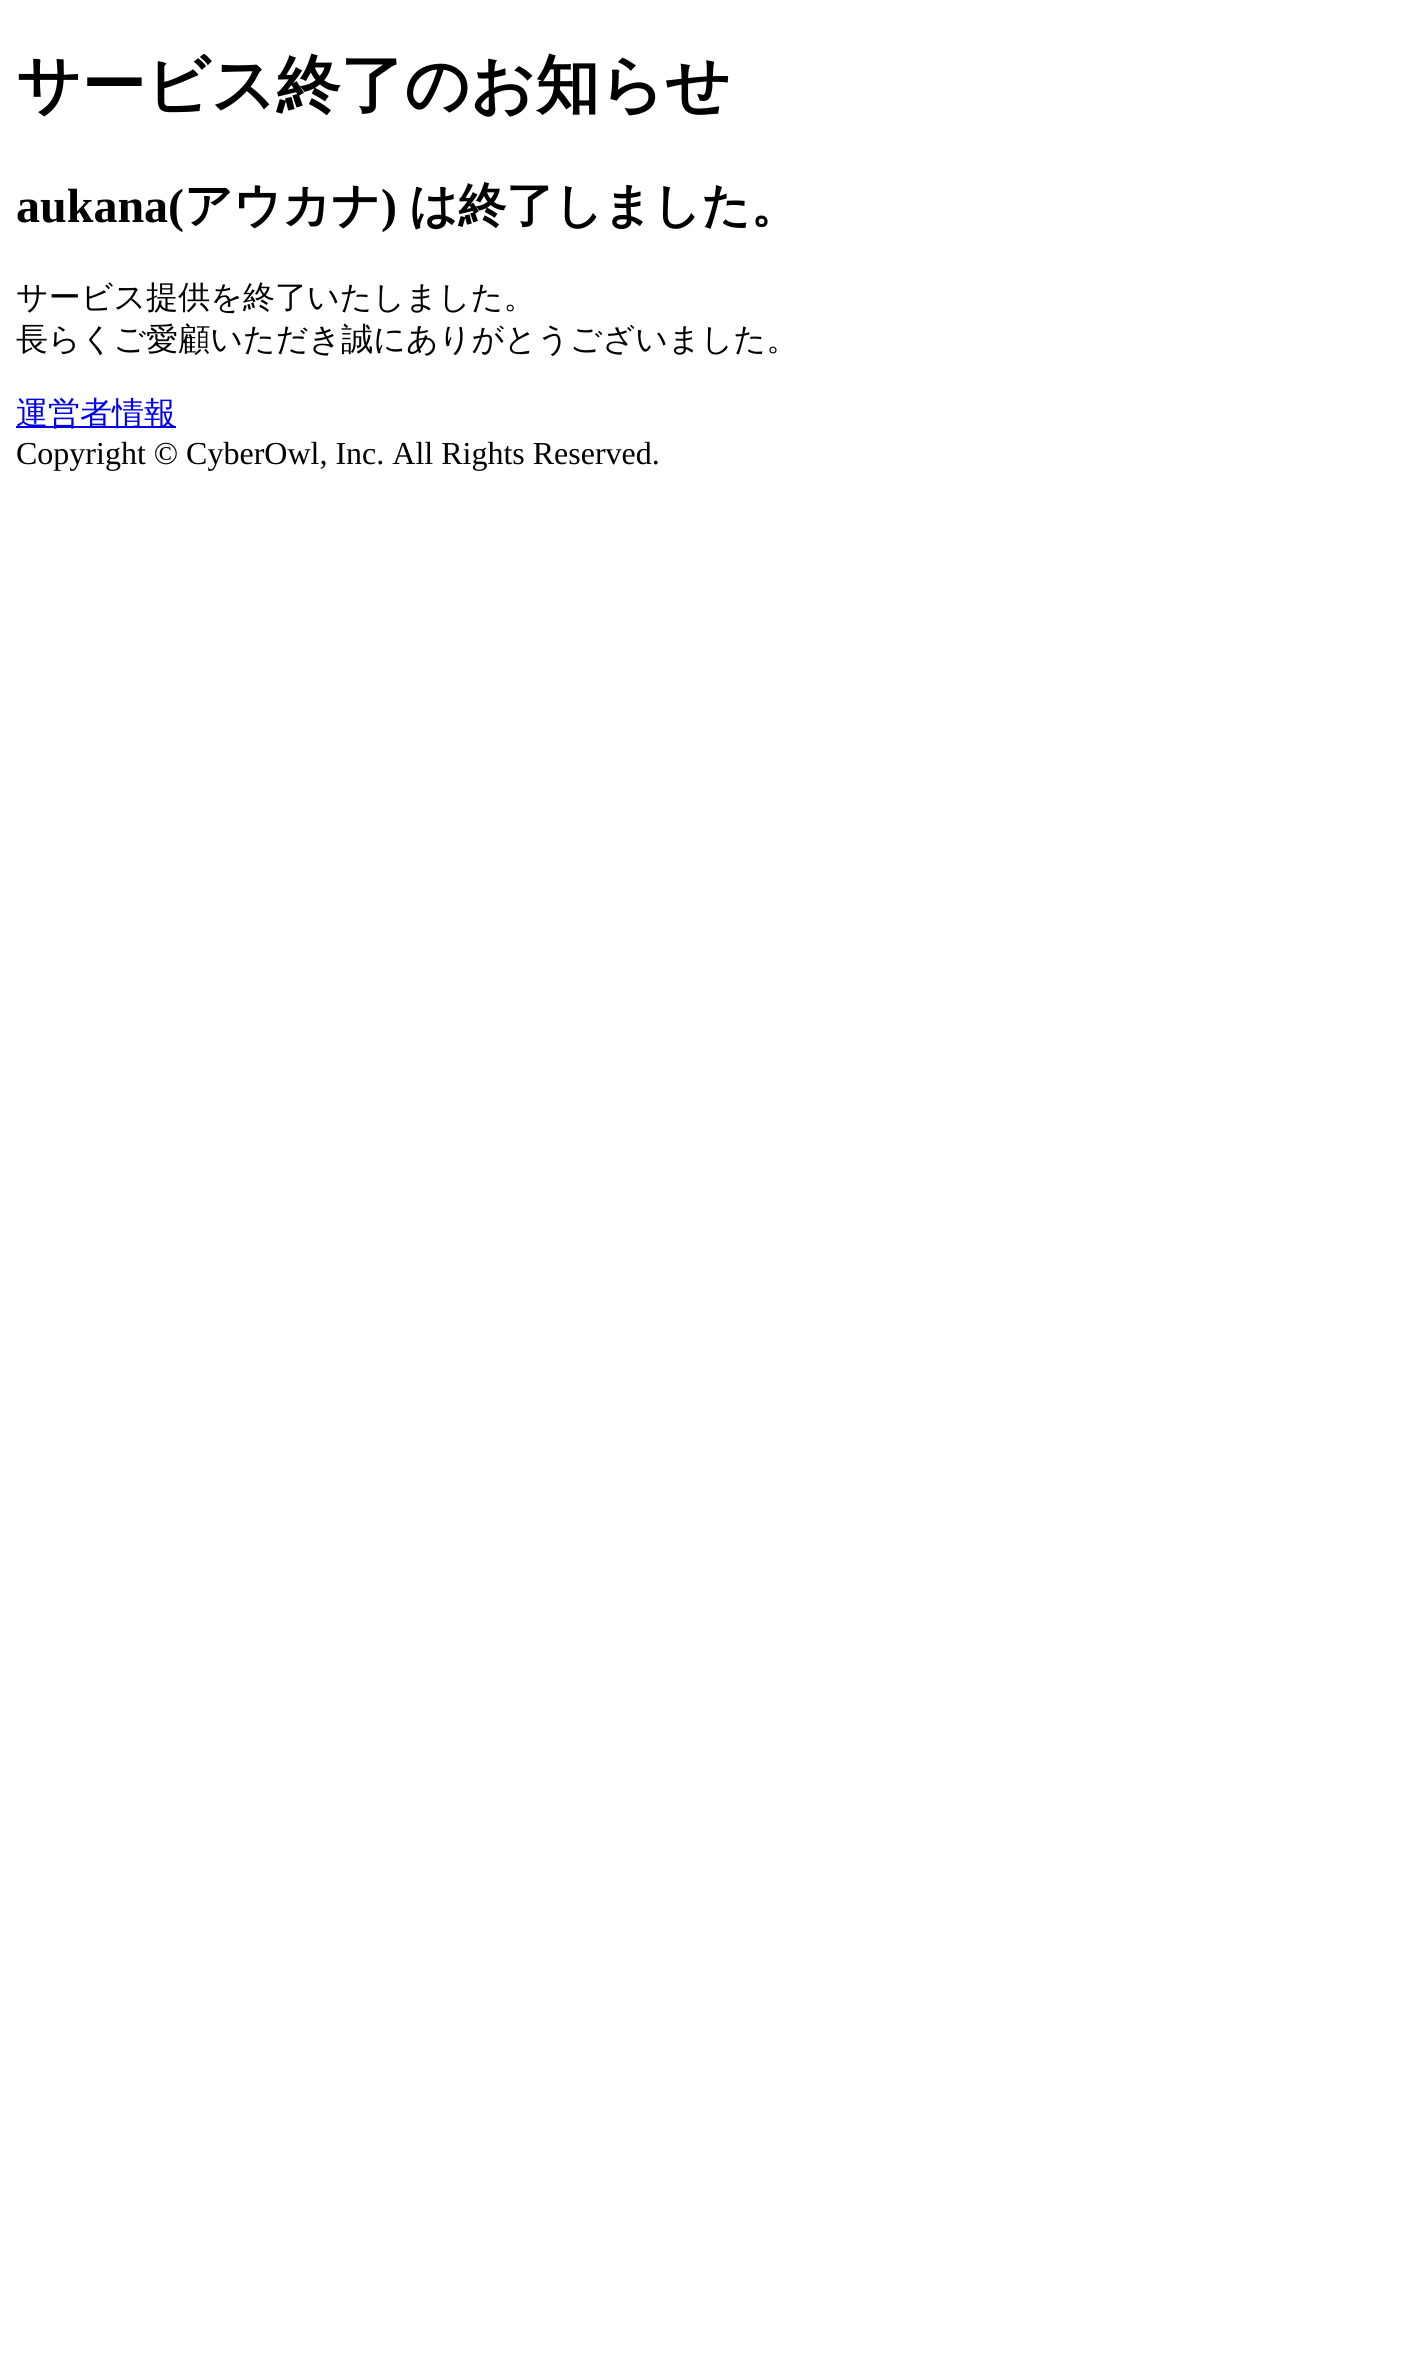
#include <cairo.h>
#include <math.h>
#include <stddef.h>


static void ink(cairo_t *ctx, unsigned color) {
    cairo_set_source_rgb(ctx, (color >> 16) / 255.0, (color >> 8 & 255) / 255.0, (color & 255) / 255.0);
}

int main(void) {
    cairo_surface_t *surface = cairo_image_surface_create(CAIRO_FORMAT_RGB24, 1404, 2368);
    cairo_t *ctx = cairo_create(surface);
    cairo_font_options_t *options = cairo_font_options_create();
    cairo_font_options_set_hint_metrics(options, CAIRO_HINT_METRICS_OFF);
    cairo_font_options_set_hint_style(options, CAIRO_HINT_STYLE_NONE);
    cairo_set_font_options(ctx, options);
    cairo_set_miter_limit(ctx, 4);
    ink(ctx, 0xFFFFFF);
    cairo_paint(ctx);
    cairo_select_font_face(ctx, "WenQuanYi Zen Hei", CAIRO_FONT_SLANT_NORMAL, CAIRO_FONT_WEIGHT_BOLD);
    cairo_set_font_size(ctx, 64);
    ink(ctx, 0x000000);
    cairo_move_to(ctx, 16, 107);
    cairo_show_text(ctx, "サービス終了のお知らせ");
    cairo_select_font_face(ctx, "Liberation Serif", CAIRO_FONT_SLANT_NORMAL, CAIRO_FONT_WEIGHT_BOLD);
    cairo_set_font_size(ctx, 48);
    cairo_move_to(ctx, 16, 222);
    cairo_show_text(ctx, "aukana(");
    cairo_select_font_face(ctx, "WenQuanYi Zen Hei", CAIRO_FONT_SLANT_NORMAL, CAIRO_FONT_WEIGHT_BOLD);
    cairo_move_to(ctx, 184, 222);
    cairo_show_text(ctx, "アウカナ");
    cairo_select_font_face(ctx, "Liberation Serif", CAIRO_FONT_SLANT_NORMAL, CAIRO_FONT_WEIGHT_BOLD);
    cairo_move_to(ctx, 381, 222);
    cairo_show_text(ctx, ")");
    cairo_select_font_face(ctx, "WenQuanYi Zen Hei", CAIRO_FONT_SLANT_NORMAL, CAIRO_FONT_WEIGHT_BOLD);
    cairo_move_to(ctx, 409, 222);
    cairo_show_text(ctx, "は終了しました。");
    cairo_select_font_face(ctx, "WenQuanYi Zen Hei Medium", CAIRO_FONT_SLANT_NORMAL, CAIRO_FONT_WEIGHT_NORMAL);
    cairo_set_font_size(ctx, 32);
    cairo_move_to(ctx, 16, 308);
    cairo_show_text(ctx, "サービス提供を終了いたしました。");
    cairo_move_to(ctx, 16, 350);
    cairo_show_text(ctx, "長らくご愛顧いただき誠にありがとうございました。");
    ink(ctx, 0x0000EE);
    cairo_rectangle(ctx, 16, 426, 160, 2);
    cairo_fill(ctx);
    cairo_move_to(ctx, 16, 424);
    cairo_show_text(ctx, "運営者情報");
    cairo_select_font_face(ctx, "Liberation Serif", CAIRO_FONT_SLANT_NORMAL, CAIRO_FONT_WEIGHT_NORMAL);
    ink(ctx, 0x000000);
    cairo_move_to(ctx, 16, 464);
    cairo_show_text(ctx, "Copyright © CyberOwl, Inc. All Rights Reserved.");
    cairo_surface_write_to_png(surface, "image.png");
    cairo_font_options_destroy(options);
    cairo_destroy(ctx);
    cairo_surface_destroy(surface);
    return 0;
}
